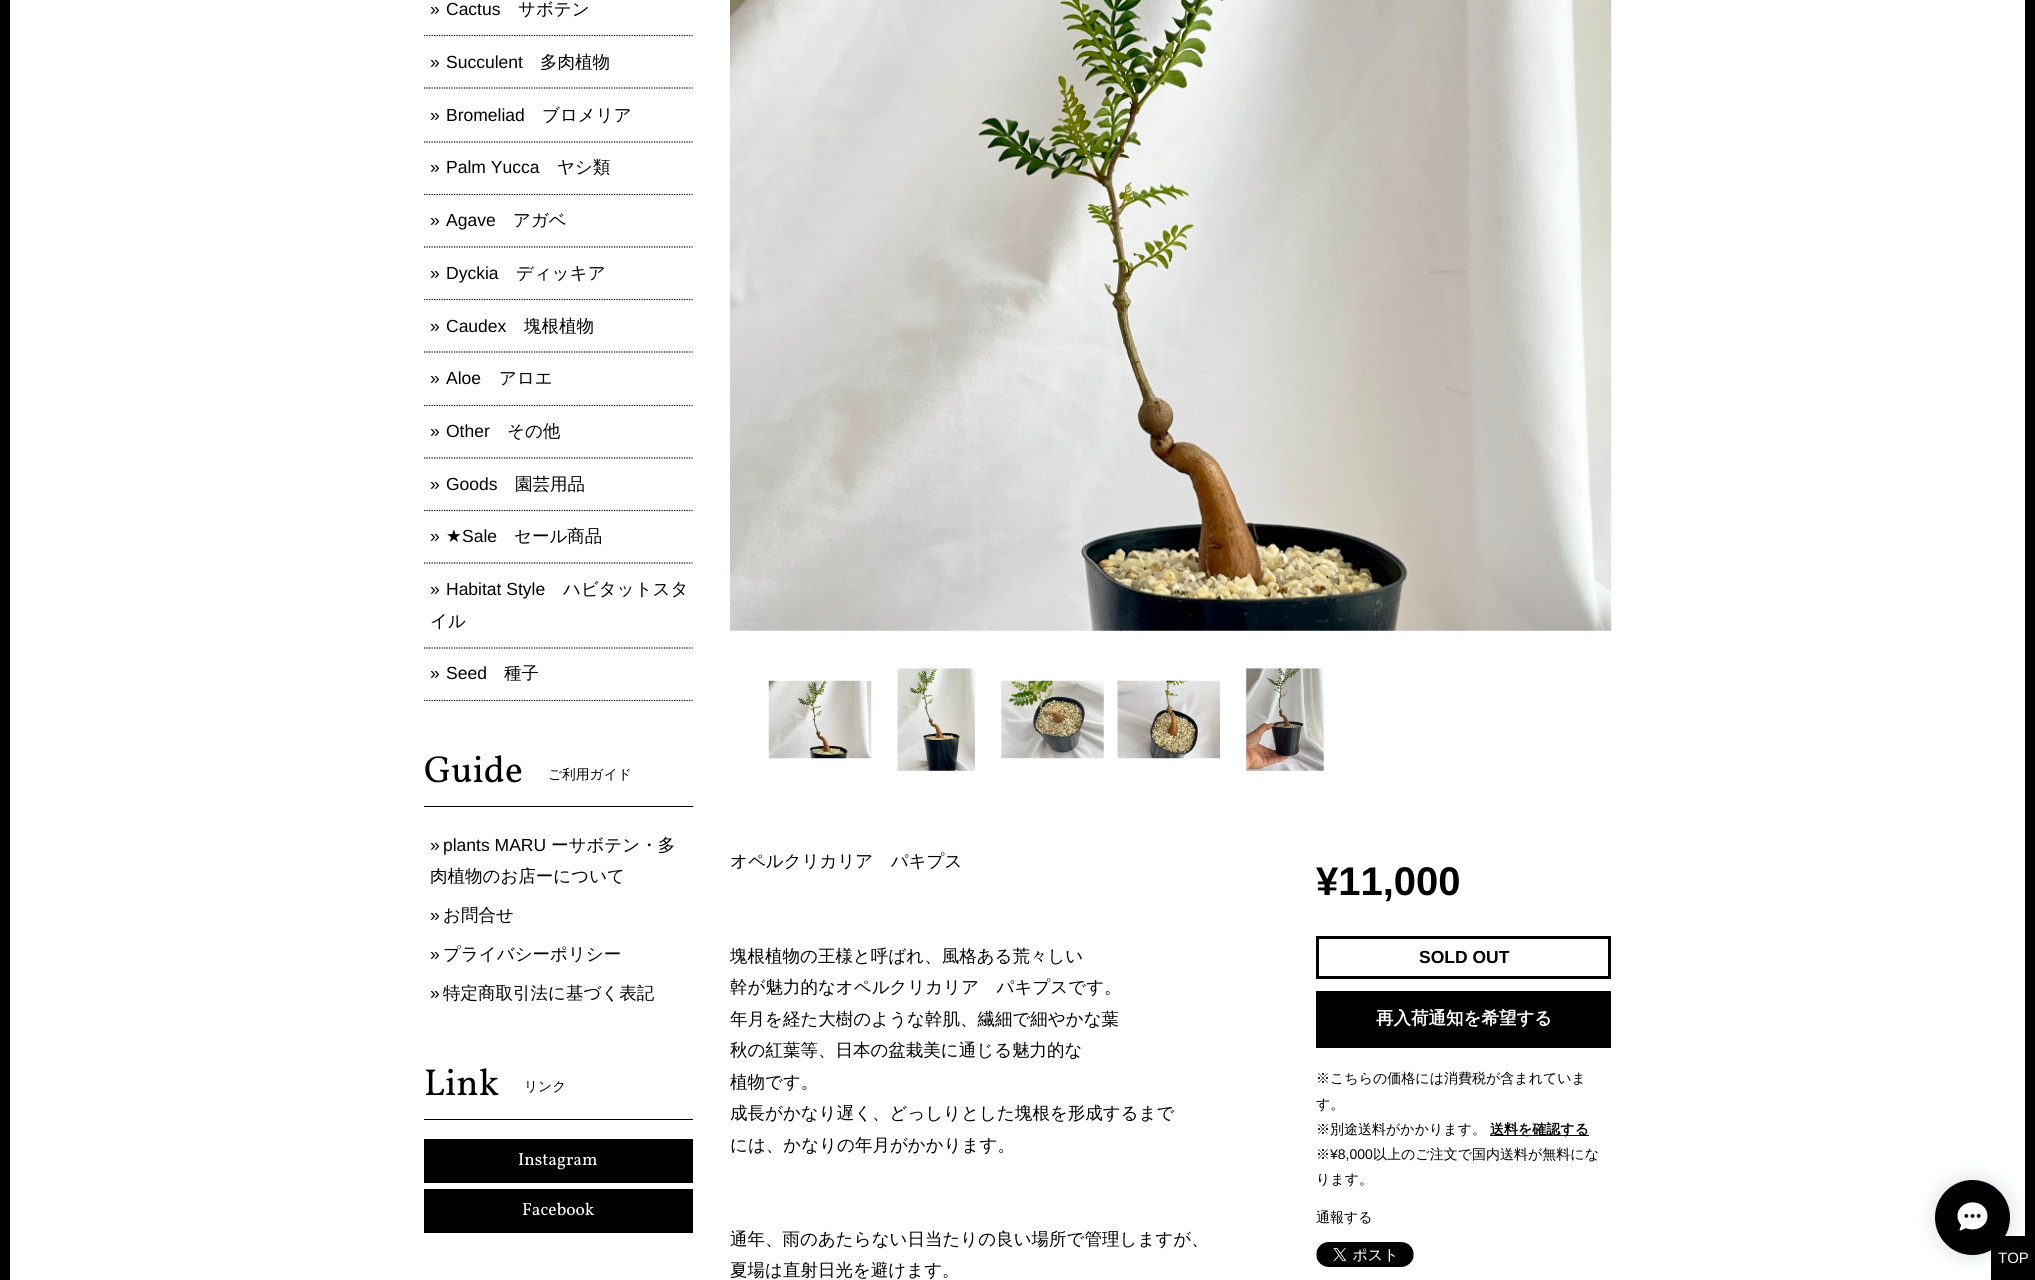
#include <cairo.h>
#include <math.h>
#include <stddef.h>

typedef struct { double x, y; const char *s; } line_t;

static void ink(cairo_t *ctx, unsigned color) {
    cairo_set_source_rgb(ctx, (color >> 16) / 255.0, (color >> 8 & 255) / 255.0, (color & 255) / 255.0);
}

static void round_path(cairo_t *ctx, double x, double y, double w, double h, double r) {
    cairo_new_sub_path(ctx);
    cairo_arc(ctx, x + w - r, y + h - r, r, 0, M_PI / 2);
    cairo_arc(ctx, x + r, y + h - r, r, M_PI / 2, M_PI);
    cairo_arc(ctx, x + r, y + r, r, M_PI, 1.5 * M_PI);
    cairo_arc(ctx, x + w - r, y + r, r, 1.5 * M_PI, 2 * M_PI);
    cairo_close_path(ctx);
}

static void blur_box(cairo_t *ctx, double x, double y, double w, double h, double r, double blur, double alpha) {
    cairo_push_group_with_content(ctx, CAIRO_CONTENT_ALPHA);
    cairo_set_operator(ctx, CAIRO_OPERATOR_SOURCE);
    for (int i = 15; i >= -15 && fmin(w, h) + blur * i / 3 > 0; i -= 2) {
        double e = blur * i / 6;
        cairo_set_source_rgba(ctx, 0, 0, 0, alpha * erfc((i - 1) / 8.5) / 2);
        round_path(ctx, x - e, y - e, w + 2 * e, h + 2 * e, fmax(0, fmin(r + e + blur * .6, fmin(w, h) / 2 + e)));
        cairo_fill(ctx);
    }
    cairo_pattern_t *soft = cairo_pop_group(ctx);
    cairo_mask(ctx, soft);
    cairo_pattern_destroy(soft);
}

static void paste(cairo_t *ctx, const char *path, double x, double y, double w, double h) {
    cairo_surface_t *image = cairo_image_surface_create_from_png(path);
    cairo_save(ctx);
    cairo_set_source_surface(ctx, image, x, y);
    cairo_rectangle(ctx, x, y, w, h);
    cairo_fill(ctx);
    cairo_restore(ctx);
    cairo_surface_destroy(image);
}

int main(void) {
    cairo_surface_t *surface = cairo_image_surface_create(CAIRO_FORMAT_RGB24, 2035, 1280);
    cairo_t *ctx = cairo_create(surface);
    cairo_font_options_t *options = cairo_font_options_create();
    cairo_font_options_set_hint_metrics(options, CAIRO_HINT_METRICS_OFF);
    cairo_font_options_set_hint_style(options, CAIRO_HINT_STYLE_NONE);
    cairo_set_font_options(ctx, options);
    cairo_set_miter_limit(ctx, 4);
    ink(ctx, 0xFFFFFF);
    cairo_paint(ctx);
    cairo_rectangle(ctx, 5, -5, 2025, 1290);
    ink(ctx, 0x000000);
    cairo_set_line_width(ctx, 10);
    cairo_stroke(ctx);
    cairo_new_path(ctx);
    cairo_move_to(ctx, 424, 35.5);
    cairo_line_to(ctx, 692.5, 35.5);
    cairo_set_line_width(ctx, 1.2);
    cairo_set_dash(ctx, (double[]){1.25, 1.25}, 2, 0);
    cairo_stroke(ctx);
    cairo_select_font_face(ctx, "Liberation Sans", CAIRO_FONT_SLANT_NORMAL, CAIRO_FONT_WEIGHT_NORMAL);
    cairo_set_font_size(ctx, 17.5);
    cairo_move_to(ctx, 430, 15);
    cairo_show_text(ctx, "»");
    cairo_move_to(ctx, 446, 15);
    cairo_show_text(ctx, "Cactus");
    cairo_select_font_face(ctx, "WenQuanYi Zen Hei Medium", CAIRO_FONT_SLANT_NORMAL, CAIRO_FONT_WEIGHT_NORMAL);
    cairo_move_to(ctx, 518, 15);
    cairo_show_text(ctx, "サボテン");
    cairo_new_path(ctx);
    cairo_move_to(ctx, 424, 88);
    cairo_line_to(ctx, 692.5, 88);
    cairo_stroke(ctx);
    cairo_select_font_face(ctx, "Liberation Sans", CAIRO_FONT_SLANT_NORMAL, CAIRO_FONT_WEIGHT_NORMAL);
    cairo_move_to(ctx, 430, 68);
    cairo_show_text(ctx, "»");
    cairo_move_to(ctx, 446, 68);
    cairo_show_text(ctx, "Succulent");
    cairo_select_font_face(ctx, "WenQuanYi Zen Hei Medium", CAIRO_FONT_SLANT_NORMAL, CAIRO_FONT_WEIGHT_NORMAL);
    cairo_move_to(ctx, 540, 68);
    cairo_show_text(ctx, "多肉植物");
    cairo_new_path(ctx);
    cairo_move_to(ctx, 424, 142);
    cairo_line_to(ctx, 692.5, 142);
    cairo_stroke(ctx);
    cairo_select_font_face(ctx, "Liberation Sans", CAIRO_FONT_SLANT_NORMAL, CAIRO_FONT_WEIGHT_NORMAL);
    cairo_move_to(ctx, 430, 121);
    cairo_show_text(ctx, "»");
    cairo_move_to(ctx, 446, 121);
    cairo_show_text(ctx, "Bromeliad");
    cairo_select_font_face(ctx, "WenQuanYi Zen Hei Medium", CAIRO_FONT_SLANT_NORMAL, CAIRO_FONT_WEIGHT_NORMAL);
    cairo_move_to(ctx, 542, 121);
    cairo_show_text(ctx, "ブロメリア");
    cairo_new_path(ctx);
    cairo_move_to(ctx, 424, 194.5);
    cairo_line_to(ctx, 692.5, 194.5);
    cairo_stroke(ctx);
    cairo_select_font_face(ctx, "Liberation Sans", CAIRO_FONT_SLANT_NORMAL, CAIRO_FONT_WEIGHT_NORMAL);
    cairo_move_to(ctx, 430, 173);
    cairo_show_text(ctx, "»");
    cairo_move_to(ctx, 446, 173);
    cairo_show_text(ctx, "Palm Yucca");
    cairo_select_font_face(ctx, "WenQuanYi Zen Hei Medium", CAIRO_FONT_SLANT_NORMAL, CAIRO_FONT_WEIGHT_NORMAL);
    cairo_move_to(ctx, 557, 173);
    cairo_show_text(ctx, "ヤシ類");
    cairo_new_path(ctx);
    cairo_move_to(ctx, 424, 247);
    cairo_line_to(ctx, 692.5, 247);
    cairo_stroke(ctx);
    cairo_select_font_face(ctx, "Liberation Sans", CAIRO_FONT_SLANT_NORMAL, CAIRO_FONT_WEIGHT_NORMAL);
    cairo_move_to(ctx, 430, 226);
    cairo_show_text(ctx, "»");
    cairo_move_to(ctx, 446, 226);
    cairo_show_text(ctx, "Agave");
    cairo_select_font_face(ctx, "WenQuanYi Zen Hei Medium", CAIRO_FONT_SLANT_NORMAL, CAIRO_FONT_WEIGHT_NORMAL);
    cairo_move_to(ctx, 513, 226);
    cairo_show_text(ctx, "アガベ");
    cairo_new_path(ctx);
    cairo_move_to(ctx, 424, 299.5);
    cairo_line_to(ctx, 692.5, 299.5);
    cairo_stroke(ctx);
    cairo_select_font_face(ctx, "Liberation Sans", CAIRO_FONT_SLANT_NORMAL, CAIRO_FONT_WEIGHT_NORMAL);
    cairo_move_to(ctx, 430, 279);
    cairo_show_text(ctx, "»");
    cairo_move_to(ctx, 446, 279);
    cairo_show_text(ctx, "Dyckia");
    cairo_select_font_face(ctx, "WenQuanYi Zen Hei Medium", CAIRO_FONT_SLANT_NORMAL, CAIRO_FONT_WEIGHT_NORMAL);
    cairo_move_to(ctx, 516, 279);
    cairo_show_text(ctx, "ディッキア");
    cairo_new_path(ctx);
    cairo_move_to(ctx, 424, 352);
    cairo_line_to(ctx, 692.5, 352);
    cairo_stroke(ctx);
    cairo_select_font_face(ctx, "Liberation Sans", CAIRO_FONT_SLANT_NORMAL, CAIRO_FONT_WEIGHT_NORMAL);
    cairo_move_to(ctx, 430, 332);
    cairo_show_text(ctx, "»");
    cairo_move_to(ctx, 446, 332);
    cairo_show_text(ctx, "Caudex");
    cairo_select_font_face(ctx, "WenQuanYi Zen Hei Medium", CAIRO_FONT_SLANT_NORMAL, CAIRO_FONT_WEIGHT_NORMAL);
    cairo_move_to(ctx, 524, 332);
    cairo_show_text(ctx, "塊根植物");
    cairo_new_path(ctx);
    cairo_move_to(ctx, 424, 405.5);
    cairo_line_to(ctx, 692.5, 405.5);
    cairo_stroke(ctx);
    cairo_select_font_face(ctx, "Liberation Sans", CAIRO_FONT_SLANT_NORMAL, CAIRO_FONT_WEIGHT_NORMAL);
    cairo_move_to(ctx, 430, 384);
    cairo_show_text(ctx, "»");
    cairo_move_to(ctx, 446, 384);
    cairo_show_text(ctx, "Aloe");
    cairo_select_font_face(ctx, "WenQuanYi Zen Hei Medium", CAIRO_FONT_SLANT_NORMAL, CAIRO_FONT_WEIGHT_NORMAL);
    cairo_move_to(ctx, 499, 384);
    cairo_show_text(ctx, "アロエ");
    cairo_new_path(ctx);
    cairo_move_to(ctx, 424, 458);
    cairo_line_to(ctx, 692.5, 458);
    cairo_stroke(ctx);
    cairo_select_font_face(ctx, "Liberation Sans", CAIRO_FONT_SLANT_NORMAL, CAIRO_FONT_WEIGHT_NORMAL);
    cairo_move_to(ctx, 430, 437);
    cairo_show_text(ctx, "»");
    cairo_move_to(ctx, 446, 437);
    cairo_show_text(ctx, "Other");
    cairo_select_font_face(ctx, "WenQuanYi Zen Hei Medium", CAIRO_FONT_SLANT_NORMAL, CAIRO_FONT_WEIGHT_NORMAL);
    cairo_move_to(ctx, 507, 437);
    cairo_show_text(ctx, "その他");
    cairo_new_path(ctx);
    cairo_move_to(ctx, 424, 510.5);
    cairo_line_to(ctx, 692.5, 510.5);
    cairo_stroke(ctx);
    cairo_select_font_face(ctx, "Liberation Sans", CAIRO_FONT_SLANT_NORMAL, CAIRO_FONT_WEIGHT_NORMAL);
    cairo_move_to(ctx, 430, 490);
    cairo_show_text(ctx, "»");
    cairo_move_to(ctx, 446, 490);
    cairo_show_text(ctx, "Goods");
    cairo_select_font_face(ctx, "WenQuanYi Zen Hei Medium", CAIRO_FONT_SLANT_NORMAL, CAIRO_FONT_WEIGHT_NORMAL);
    cairo_move_to(ctx, 515, 490);
    cairo_show_text(ctx, "園芸用品");
    cairo_new_path(ctx);
    cairo_move_to(ctx, 424, 563);
    cairo_line_to(ctx, 692.5, 563);
    cairo_stroke(ctx);
    cairo_select_font_face(ctx, "Liberation Sans", CAIRO_FONT_SLANT_NORMAL, CAIRO_FONT_WEIGHT_NORMAL);
    cairo_move_to(ctx, 430, 542);
    cairo_show_text(ctx, "»");
    cairo_select_font_face(ctx, "DejaVu Sans", CAIRO_FONT_SLANT_NORMAL, CAIRO_FONT_WEIGHT_NORMAL);
    cairo_move_to(ctx, 446, 542);
    cairo_show_text(ctx, "★");
    cairo_select_font_face(ctx, "Liberation Sans", CAIRO_FONT_SLANT_NORMAL, CAIRO_FONT_WEIGHT_NORMAL);
    cairo_move_to(ctx, 462, 542);
    cairo_show_text(ctx, "Sale");
    cairo_select_font_face(ctx, "WenQuanYi Zen Hei Medium", CAIRO_FONT_SLANT_NORMAL, CAIRO_FONT_WEIGHT_NORMAL);
    cairo_move_to(ctx, 514, 542);
    cairo_show_text(ctx, "セール商品");
    cairo_new_path(ctx);
    cairo_move_to(ctx, 424, 648);
    cairo_line_to(ctx, 692.5, 648);
    cairo_stroke(ctx);
    cairo_select_font_face(ctx, "Liberation Sans", CAIRO_FONT_SLANT_NORMAL, CAIRO_FONT_WEIGHT_NORMAL);
    cairo_move_to(ctx, 430, 595);
    cairo_show_text(ctx, "»");
    cairo_move_to(ctx, 446, 595);
    cairo_show_text(ctx, "Habitat Style");
    cairo_select_font_face(ctx, "WenQuanYi Zen Hei Medium", CAIRO_FONT_SLANT_NORMAL, CAIRO_FONT_WEIGHT_NORMAL);
    cairo_move_to(ctx, 563, 595);
    cairo_show_text(ctx, "ハビタットスタ");
    cairo_move_to(ctx, 430, 627);
    cairo_show_text(ctx, "イル");
    cairo_new_path(ctx);
    cairo_move_to(ctx, 424, 700.5);
    cairo_line_to(ctx, 692.5, 700.5);
    cairo_stroke(ctx);
    cairo_select_font_face(ctx, "Liberation Sans", CAIRO_FONT_SLANT_NORMAL, CAIRO_FONT_WEIGHT_NORMAL);
    cairo_move_to(ctx, 430, 679);
    cairo_show_text(ctx, "»");
    cairo_move_to(ctx, 446, 679);
    cairo_show_text(ctx, "Seed");
    cairo_select_font_face(ctx, "WenQuanYi Zen Hei Medium", CAIRO_FONT_SLANT_NORMAL, CAIRO_FONT_WEIGHT_NORMAL);
    cairo_move_to(ctx, 504, 679);
    cairo_show_text(ctx, "種子");
    cairo_rectangle(ctx, 424, 806, 269, 1);
    cairo_fill(ctx);
    cairo_select_font_face(ctx, "Vollkorn", CAIRO_FONT_SLANT_NORMAL, CAIRO_FONT_WEIGHT_NORMAL);
    cairo_set_font_size(ctx, 37.5);
    cairo_move_to(ctx, 424, 782);
    cairo_show_text(ctx, "Guide");
    cairo_select_font_face(ctx, "WenQuanYi Zen Hei Medium", CAIRO_FONT_SLANT_NORMAL, CAIRO_FONT_WEIGHT_NORMAL);
    cairo_set_font_size(ctx, 13.75);
    cairo_move_to(ctx, 548, 779);
    cairo_show_text(ctx, "ご利用ガイド");
    cairo_select_font_face(ctx, "Liberation Sans", CAIRO_FONT_SLANT_NORMAL, CAIRO_FONT_WEIGHT_NORMAL);
    cairo_set_font_size(ctx, 17.5);
    cairo_move_to(ctx, 430, 851);
    cairo_show_text(ctx, "»");
    cairo_move_to(ctx, 443, 851);
    cairo_show_text(ctx, "plants MARU");
    cairo_select_font_face(ctx, "WenQuanYi Zen Hei Medium", CAIRO_FONT_SLANT_NORMAL, CAIRO_FONT_WEIGHT_NORMAL);
    cairo_move_to(ctx, 551, 851);
    cairo_show_text(ctx, "ーサボテン・多");
    cairo_move_to(ctx, 430, 882);
    cairo_show_text(ctx, "肉植物のお店ーについて");
    cairo_select_font_face(ctx, "Liberation Sans", CAIRO_FONT_SLANT_NORMAL, CAIRO_FONT_WEIGHT_NORMAL);
    cairo_move_to(ctx, 430, 921);
    cairo_show_text(ctx, "»");
    cairo_select_font_face(ctx, "WenQuanYi Zen Hei Medium", CAIRO_FONT_SLANT_NORMAL, CAIRO_FONT_WEIGHT_NORMAL);
    cairo_move_to(ctx, 443, 921);
    cairo_show_text(ctx, "お問合せ");
    cairo_select_font_face(ctx, "Liberation Sans", CAIRO_FONT_SLANT_NORMAL, CAIRO_FONT_WEIGHT_NORMAL);
    cairo_move_to(ctx, 430, 960);
    cairo_show_text(ctx, "»");
    cairo_select_font_face(ctx, "WenQuanYi Zen Hei Medium", CAIRO_FONT_SLANT_NORMAL, CAIRO_FONT_WEIGHT_NORMAL);
    cairo_move_to(ctx, 443, 960);
    cairo_show_text(ctx, "プライバシーポリシー");
    cairo_select_font_face(ctx, "Liberation Sans", CAIRO_FONT_SLANT_NORMAL, CAIRO_FONT_WEIGHT_NORMAL);
    cairo_move_to(ctx, 430, 999);
    cairo_show_text(ctx, "»");
    cairo_select_font_face(ctx, "WenQuanYi Zen Hei Medium", CAIRO_FONT_SLANT_NORMAL, CAIRO_FONT_WEIGHT_NORMAL);
    cairo_move_to(ctx, 443, 999);
    cairo_show_text(ctx, "特定商取引法に基づく表記");
    cairo_rectangle(ctx, 424, 1119, 269, 1);
    cairo_fill(ctx);
    cairo_select_font_face(ctx, "Vollkorn", CAIRO_FONT_SLANT_NORMAL, CAIRO_FONT_WEIGHT_NORMAL);
    cairo_set_font_size(ctx, 37.5);
    cairo_move_to(ctx, 424, 1095);
    cairo_show_text(ctx, "Link");
    cairo_select_font_face(ctx, "WenQuanYi Zen Hei Medium", CAIRO_FONT_SLANT_NORMAL, CAIRO_FONT_WEIGHT_NORMAL);
    cairo_set_font_size(ctx, 13.75);
    cairo_move_to(ctx, 524, 1091);
    cairo_show_text(ctx, "リンク");
    cairo_rectangle(ctx, 424, 1139, 269, 44);
    cairo_fill(ctx);
    cairo_select_font_face(ctx, "Vollkorn", CAIRO_FONT_SLANT_NORMAL, CAIRO_FONT_WEIGHT_NORMAL);
    cairo_set_font_size(ctx, 17.5);
    ink(ctx, 0xFFFFFF);
    cairo_move_to(ctx, 518, 1165);
    cairo_show_text(ctx, "Instagram");
    ink(ctx, 0x000000);
    cairo_rectangle(ctx, 424, 1189, 269, 44);
    cairo_fill(ctx);
    ink(ctx, 0xFFFFFF);
    cairo_move_to(ctx, 522, 1215);
    cairo_show_text(ctx, "Facebook");
    paste(ctx, "media/1.png", 730, 0, 882, 631);
    paste(ctx, "media/2.png", 768, 680, 104, 79);
    paste(ctx, "media/3.png", 897, 668, 78, 103);
    paste(ctx, "media/4.png", 1001, 680, 103, 79);
    paste(ctx, "media/5.png", 1117, 680, 103, 79);
    paste(ctx, "media/6.png", 1246, 668, 78, 103);
    cairo_select_font_face(ctx, "WenQuanYi Zen Hei Medium", CAIRO_FONT_SLANT_NORMAL, CAIRO_FONT_WEIGHT_NORMAL);
    ink(ctx, 0x000000);
    {
        static const line_t items[] = {
            {730, 867, "オペルクリカリア　パキプス"},
            {730, 962, "塊根植物の王様と呼ばれ、風格ある荒々しい"},
            {730, 993, "幹が魅力的なオペルクリカリア　パキプスです。"},
            {730, 1025, "年月を経た大樹のような幹肌、繊細で細やかな葉"},
            {730, 1056, "秋の紅葉等、日本の盆栽美に通じる魅力的な"},
            {730, 1088, "植物です。"},
            {730, 1119, "成長がかなり遅く、どっしりとした塊根を形成するまで"},
            {730, 1151, "には、かなりの年月がかかります。"},
            {730, 1245, "通年、雨のあたらない日当たりの良い場所で管理しますが、"},
            {730, 1276, "夏場は直射日光を避けます。"},
        };
        for (size_t i = 0; i < sizeof items / sizeof *items; i++) {
            cairo_move_to(ctx, items[i].x, items[i].y);
            cairo_show_text(ctx, items[i].s);
        }
    }
    cairo_select_font_face(ctx, "Liberation Sans", CAIRO_FONT_SLANT_NORMAL, CAIRO_FONT_WEIGHT_BOLD);
    cairo_set_font_size(ctx, 40);
    cairo_move_to(ctx, 1316, 895);
    cairo_show_text(ctx, "¥11,000");
    cairo_rectangle(ctx, 1317.5, 937.5, 292, 40);
    cairo_set_line_width(ctx, 3);
    cairo_set_dash(ctx, NULL, 0, 0);
    cairo_stroke(ctx);
    cairo_set_font_size(ctx, 17.5);
    cairo_move_to(ctx, 1419, 963);
    cairo_show_text(ctx, "SOLD OUT");
    cairo_rectangle(ctx, 1316, 991, 295, 57);
    cairo_fill(ctx);
    cairo_select_font_face(ctx, "WenQuanYi Zen Hei", CAIRO_FONT_SLANT_NORMAL, CAIRO_FONT_WEIGHT_BOLD);
    ink(ctx, 0xFFFFFF);
    cairo_move_to(ctx, 1376, 1024);
    cairo_show_text(ctx, "再入荷通知を希望する");
    cairo_select_font_face(ctx, "WenQuanYi Zen Hei Medium", CAIRO_FONT_SLANT_NORMAL, CAIRO_FONT_WEIGHT_NORMAL);
    cairo_set_font_size(ctx, 14);
    ink(ctx, 0x000000);
    {
        static const line_t items[] = {
            {1316, 1083, "※こちらの価格には消費税が含まれていま"},
            {1316, 1109, "す。"},
            {1316, 1134, "※別途送料がかかります。"},
        };
        for (size_t i = 0; i < sizeof items / sizeof *items; i++) {
            cairo_move_to(ctx, items[i].x, items[i].y);
            cairo_show_text(ctx, items[i].s);
        }
    }
    cairo_rectangle(ctx, 1490, 1135, 99, 1);
    cairo_fill(ctx);
    cairo_select_font_face(ctx, "WenQuanYi Zen Hei", CAIRO_FONT_SLANT_NORMAL, CAIRO_FONT_WEIGHT_BOLD);
    cairo_move_to(ctx, 1490, 1134);
    cairo_show_text(ctx, "送料を確認する");
    cairo_select_font_face(ctx, "WenQuanYi Zen Hei Medium", CAIRO_FONT_SLANT_NORMAL, CAIRO_FONT_WEIGHT_NORMAL);
    cairo_move_to(ctx, 1316, 1159);
    cairo_show_text(ctx, "※");
    cairo_select_font_face(ctx, "Liberation Sans", CAIRO_FONT_SLANT_NORMAL, CAIRO_FONT_WEIGHT_NORMAL);
    cairo_move_to(ctx, 1330, 1159);
    cairo_show_text(ctx, "¥8,000");
    cairo_select_font_face(ctx, "WenQuanYi Zen Hei Medium", CAIRO_FONT_SLANT_NORMAL, CAIRO_FONT_WEIGHT_NORMAL);
    {
        static const line_t items[] = {
            {1373, 1159, "以上のご注文で国内送料が無料にな"},
            {1316, 1184, "ります。"},
            {1316, 1222, "通報する"},
        };
        for (size_t i = 0; i < sizeof items / sizeof *items; i++) {
            cairo_move_to(ctx, items[i].x, items[i].y);
            cairo_show_text(ctx, items[i].s);
        }
    }
    paste(ctx, "media/7.png", 1316, 1242, 98, 25);
    cairo_rectangle(ctx, 1991, 1236, 34, 44);
    cairo_fill(ctx);
    cairo_select_font_face(ctx, "Liberation Sans", CAIRO_FONT_SLANT_NORMAL, CAIRO_FONT_WEIGHT_NORMAL);
    cairo_set_font_size(ctx, 15);
    ink(ctx, 0xFFFFFF);
    cairo_move_to(ctx, 1998, 1263);
    cairo_show_text(ctx, "TOP");
    ink(ctx, 0x334258);
    blur_box(ctx, 1935, 1180, 75, 75, 37.5, 9.5, 0.2);
    ink(ctx, 0x000000);
    cairo_arc(ctx, 1972.5, 1217.5, 37.5, 0, 2 * M_PI);
    cairo_fill(ctx);
    paste(ctx, "media/8.png", 1957, 1202, 31, 29);
    cairo_surface_write_to_png(surface, "image.png");
    cairo_font_options_destroy(options);
    cairo_destroy(ctx);
    cairo_surface_destroy(surface);
    return 0;
}
